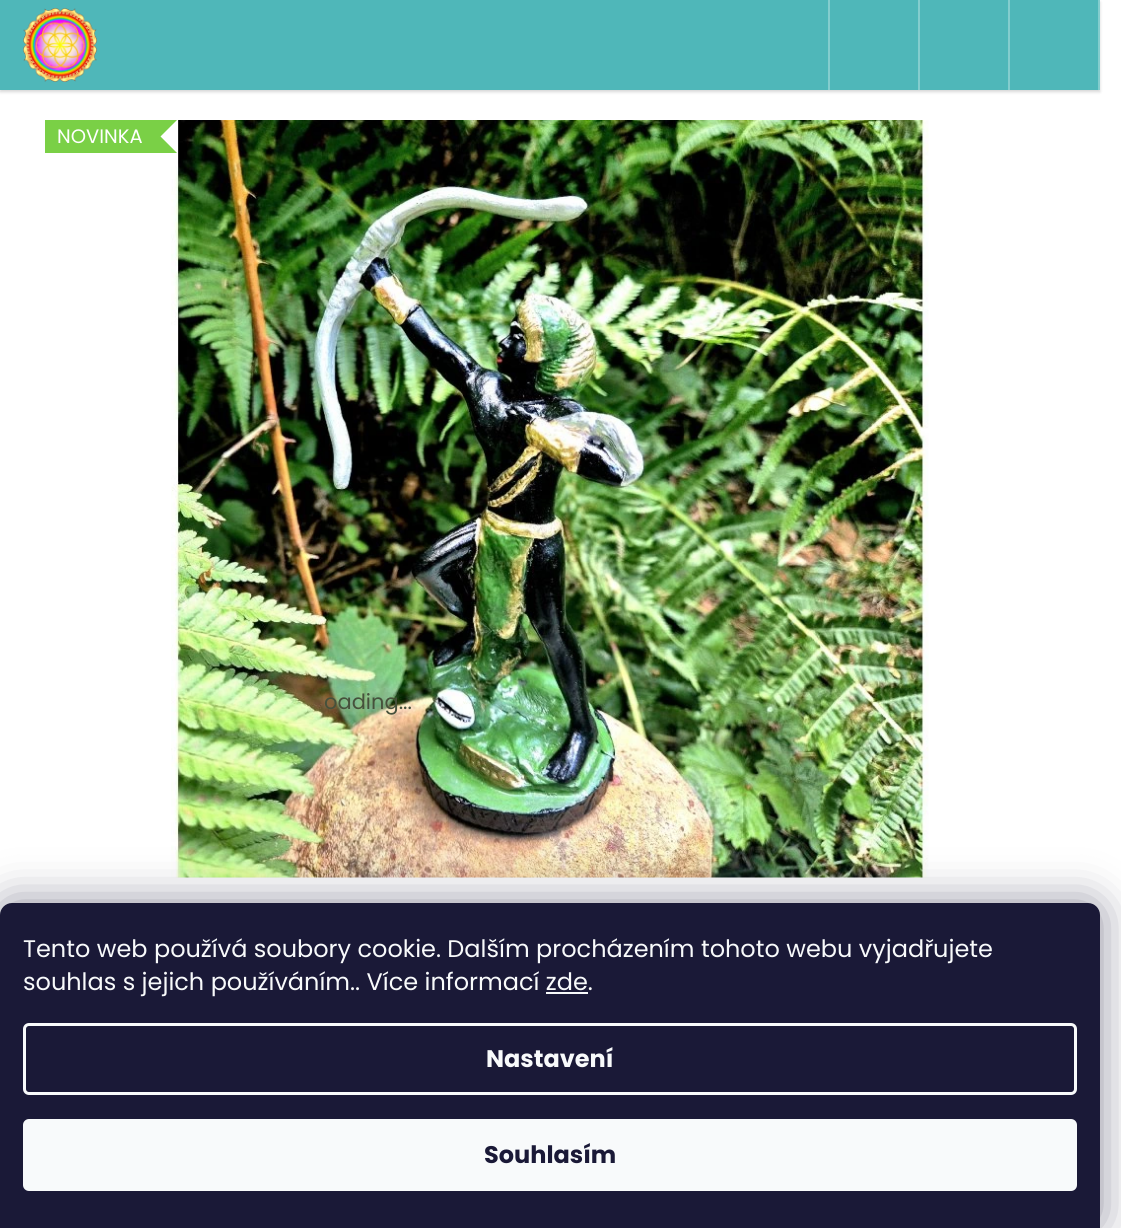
#include <cairo.h>
#include <math.h>
#include <stddef.h>

typedef struct { double x, y, w, h; unsigned color; } box_t;

static void ink(cairo_t *ctx, unsigned color) {
    cairo_set_source_rgb(ctx, (color >> 16) / 255.0, (color >> 8 & 255) / 255.0, (color & 255) / 255.0);
}

static void round_path(cairo_t *ctx, double x, double y, double w, double h, double r) {
    cairo_new_sub_path(ctx);
    cairo_arc(ctx, x + w - r, y + h - r, r, 0, M_PI / 2);
    cairo_arc(ctx, x + r, y + h - r, r, M_PI / 2, M_PI);
    cairo_arc(ctx, x + r, y + r, r, M_PI, 1.5 * M_PI);
    cairo_arc(ctx, x + w - r, y + r, r, 1.5 * M_PI, 2 * M_PI);
    cairo_close_path(ctx);
}

static void blur_box(cairo_t *ctx, double x, double y, double w, double h, double r, double blur, double alpha) {
    cairo_push_group_with_content(ctx, CAIRO_CONTENT_ALPHA);
    cairo_set_operator(ctx, CAIRO_OPERATOR_SOURCE);
    for (int i = 15; i >= -15 && fmin(w, h) + blur * i / 3 > 0; i -= 2) {
        double e = blur * i / 6;
        cairo_set_source_rgba(ctx, 0, 0, 0, alpha * erfc((i - 1) / 8.5) / 2);
        round_path(ctx, x - e, y - e, w + 2 * e, h + 2 * e, fmax(0, fmin(r + e + blur * .6, fmin(w, h) / 2 + e)));
        cairo_fill(ctx);
    }
    cairo_pattern_t *soft = cairo_pop_group(ctx);
    cairo_mask(ctx, soft);
    cairo_pattern_destroy(soft);
}

static void paste(cairo_t *ctx, const char *path, double x, double y, double w, double h) {
    cairo_surface_t *image = cairo_image_surface_create_from_png(path);
    cairo_save(ctx);
    cairo_set_source_surface(ctx, image, x, y);
    cairo_rectangle(ctx, x, y, w, h);
    cairo_fill(ctx);
    cairo_restore(ctx);
    cairo_surface_destroy(image);
}

int main(void) {
    cairo_surface_t *surface = cairo_image_surface_create(CAIRO_FORMAT_RGB24, 1121, 1228);
    cairo_t *ctx = cairo_create(surface);
    cairo_font_options_t *options = cairo_font_options_create();
    cairo_font_options_set_hint_metrics(options, CAIRO_HINT_METRICS_OFF);
    cairo_font_options_set_hint_style(options, CAIRO_HINT_STYLE_NONE);
    cairo_set_font_options(ctx, options);
    cairo_set_miter_limit(ctx, 4);
    ink(ctx, 0xFFFFFF);
    cairo_paint(ctx);
    ink(ctx, 0x000000);
    blur_box(ctx, 0, 2, 1100, 90, 0, 1.5, 0.16);
    ink(ctx, 0x4FB7B9);
    cairo_rectangle(ctx, 0, 0, 1098, 90);
    cairo_fill(ctx);
    paste(ctx, "media/1.png", 23, 8, 74, 74);
    {
        static const box_t items[] = {
            {1098, 0, 2, 90, 0x84CDCE},
            {828, 0, 2, 90, 0x84CDCE},
            {918, 0, 2, 90, 0x84CDCE},
            {1008, 0, 2, 90, 0x84CDCE},
            {45, 120, 114, 33, 0x7AD046},
        };
        for (size_t i = 0; i < sizeof items / sizeof *items; i++) {
            ink(ctx, items[i].color);
            cairo_rectangle(ctx, items[i].x, items[i].y, items[i].w, items[i].h);
            cairo_fill(ctx);
        }
    }
    cairo_select_font_face(ctx, "Poppins", CAIRO_FONT_SLANT_NORMAL, CAIRO_FONT_WEIGHT_NORMAL);
    cairo_set_font_size(ctx, 19.5);
    ink(ctx, 0xFFFFFF);
    cairo_move_to(ctx, 57, 143);
    cairo_show_text(ctx, "NOVINKA");
    paste(ctx, "media/2.png", 171, 120, 758, 758);
    ink(ctx, 0x7AD046);
    cairo_new_path(ctx);
    cairo_move_to(ctx, 141, 135);
    cairo_line_to(ctx, 159, 135);
    cairo_line_to(ctx, 177, 153);
    cairo_line_to(ctx, 159, 153);
    cairo_close_path(ctx);
    cairo_fill(ctx);
    cairo_new_path(ctx);
    cairo_move_to(ctx, 159, 120);
    cairo_line_to(ctx, 177, 120);
    cairo_line_to(ctx, 159, 138);
    cairo_line_to(ctx, 141, 138);
    cairo_close_path(ctx);
    cairo_fill(ctx);
    cairo_set_font_size(ctx, 21);
    ink(ctx, 0x46513B);
    cairo_move_to(ctx, 324, 709);
    cairo_show_text(ctx, "oading...");
    ink(ctx, 0x1B1939);
    blur_box(ctx, 0, 903, 1100, 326, 12, 22.5, 0.5);
    ink(ctx, 0x1A1937);
    cairo_new_path(ctx);
    cairo_move_to(ctx, 12, 903);
    cairo_line_to(ctx, 1088, 903);
    cairo_curve_to(ctx, 1094.5, 903, 1100, 908.5, 1100, 915);
    cairo_line_to(ctx, 1100, 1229);
    cairo_line_to(ctx, 0, 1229);
    cairo_line_to(ctx, 0, 915);
    cairo_curve_to(ctx, 0, 908.5, 5.5, 903, 12, 903);
    cairo_close_path(ctx);
    cairo_fill(ctx);
    cairo_set_font_size(ctx, 24);
    ink(ctx, 0xF8FAFB);
    cairo_move_to(ctx, 23, 957);
    cairo_show_text(ctx, "Tento web používá soubory cookie. Dalším procházením tohoto webu vyjadřujete");
    cairo_move_to(ctx, 23, 990);
    cairo_show_text(ctx, "souhlas s jejich používáním.. Více informací zde.");
    cairo_rectangle(ctx, 546, 992, 42, 2);
    cairo_fill(ctx);
    round_path(ctx, 24.5, 1024.5, 1051, 69, 4.5);
    cairo_set_line_width(ctx, 3);
    cairo_stroke(ctx);
    cairo_select_font_face(ctx, "Poppins", CAIRO_FONT_SLANT_NORMAL, CAIRO_FONT_WEIGHT_BOLD);
    cairo_move_to(ctx, 486, 1067);
    cairo_show_text(ctx, "Nastavení");
    round_path(ctx, 23, 1119, 1054, 72, 6);
    cairo_fill(ctx);
    ink(ctx, 0x1A1937);
    cairo_move_to(ctx, 484, 1163);
    cairo_show_text(ctx, "Souhlasím");
    cairo_surface_write_to_png(surface, "image.png");
    cairo_font_options_destroy(options);
    cairo_destroy(ctx);
    cairo_surface_destroy(surface);
    return 0;
}
